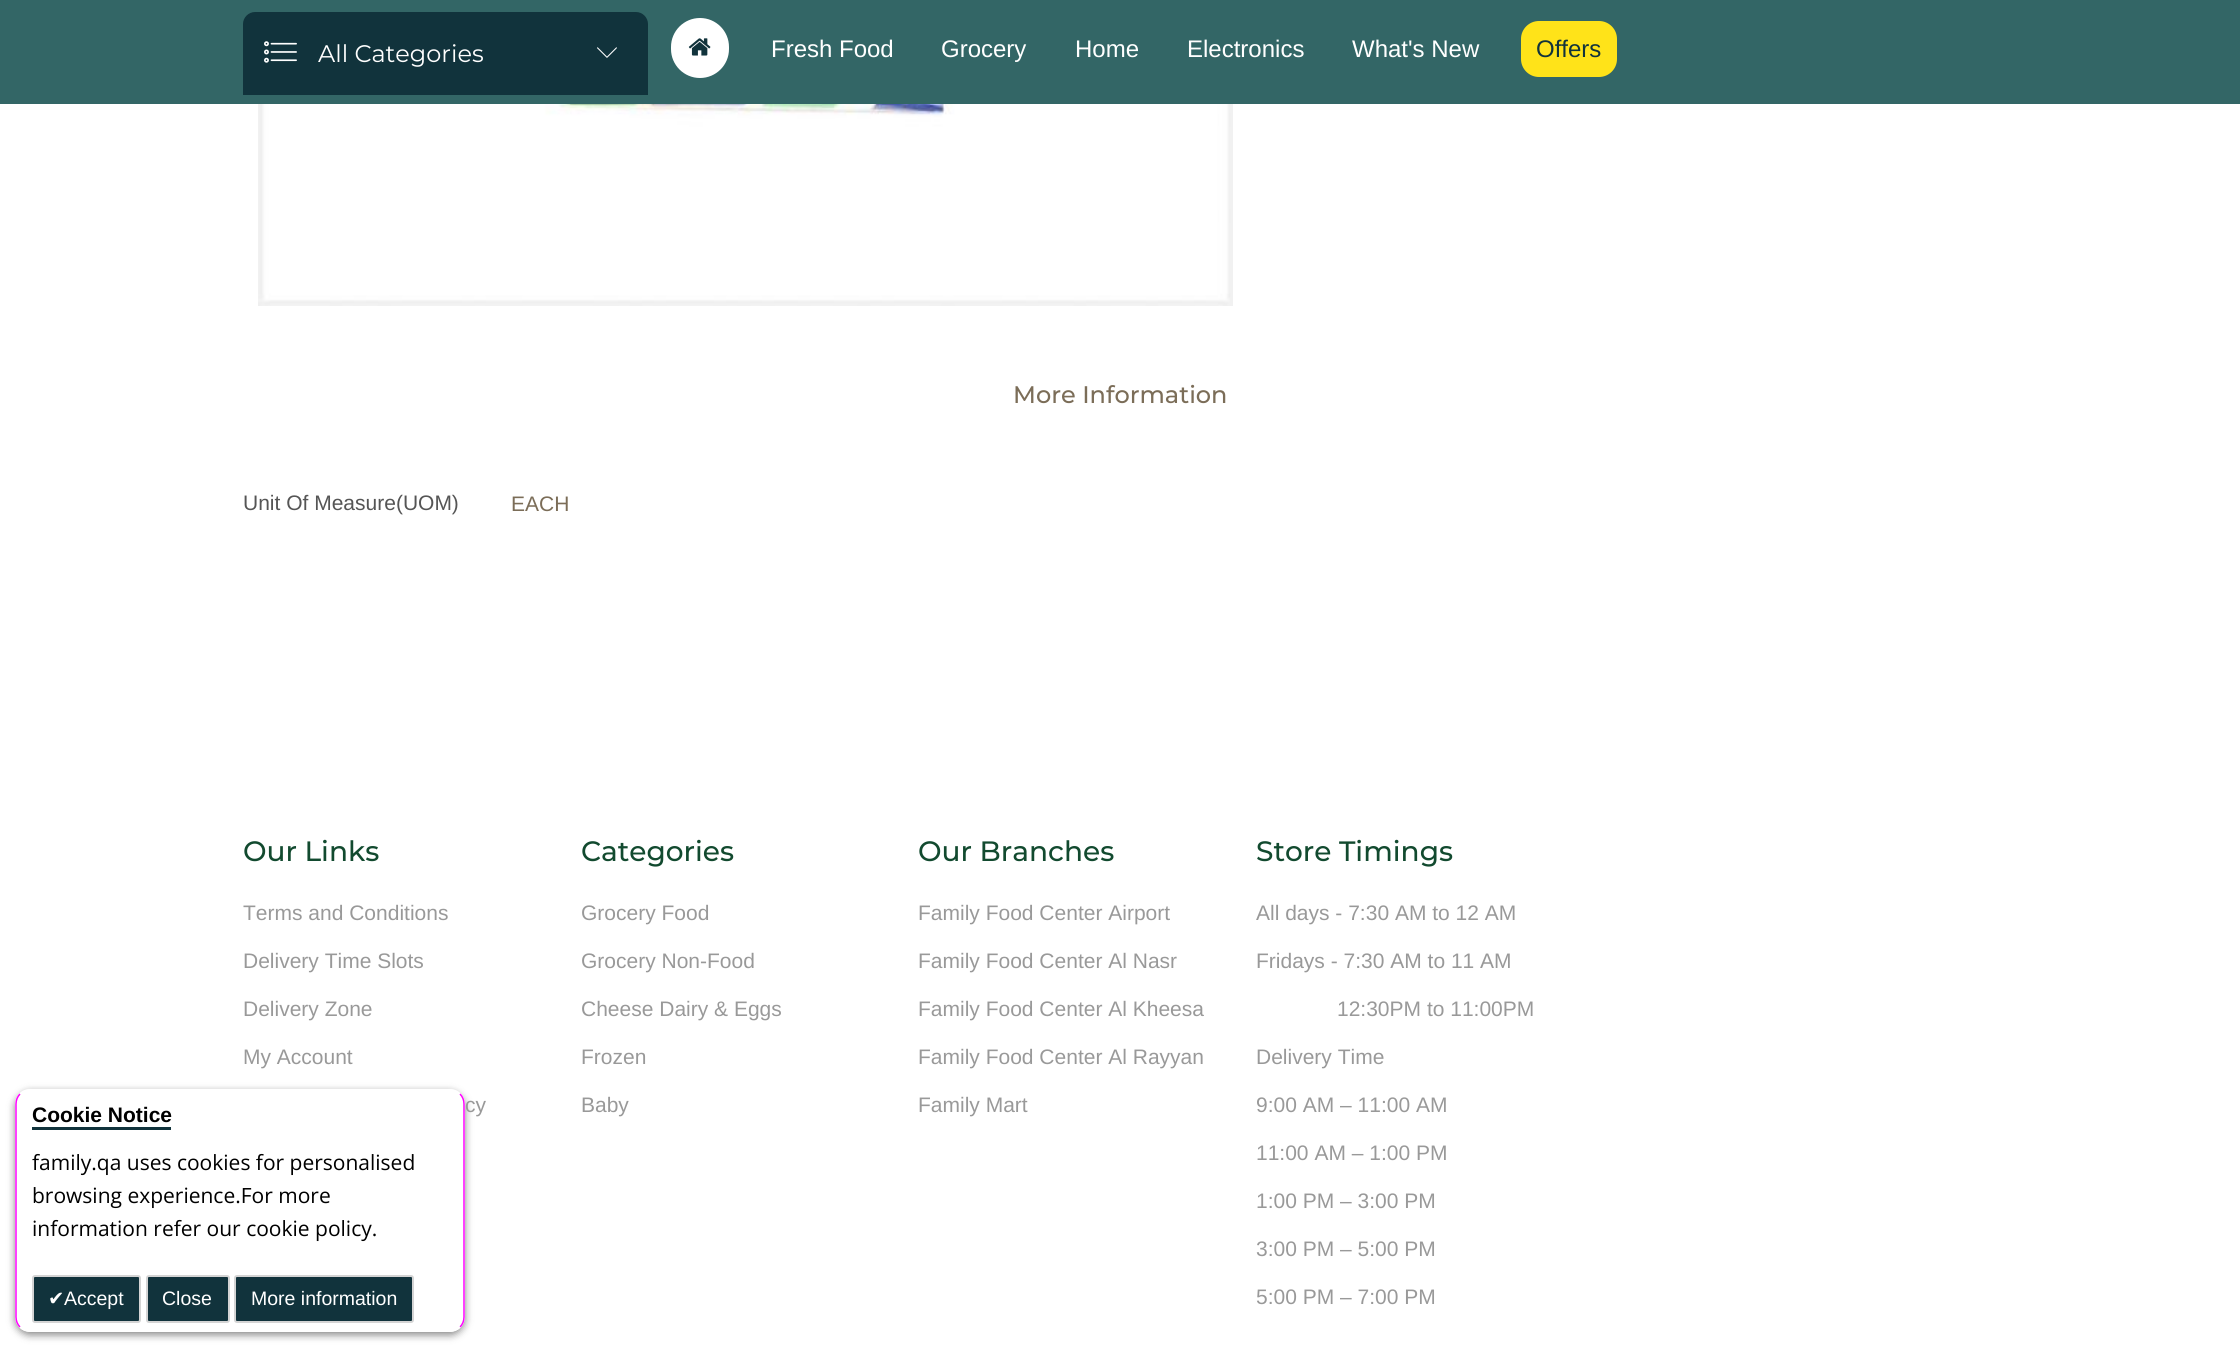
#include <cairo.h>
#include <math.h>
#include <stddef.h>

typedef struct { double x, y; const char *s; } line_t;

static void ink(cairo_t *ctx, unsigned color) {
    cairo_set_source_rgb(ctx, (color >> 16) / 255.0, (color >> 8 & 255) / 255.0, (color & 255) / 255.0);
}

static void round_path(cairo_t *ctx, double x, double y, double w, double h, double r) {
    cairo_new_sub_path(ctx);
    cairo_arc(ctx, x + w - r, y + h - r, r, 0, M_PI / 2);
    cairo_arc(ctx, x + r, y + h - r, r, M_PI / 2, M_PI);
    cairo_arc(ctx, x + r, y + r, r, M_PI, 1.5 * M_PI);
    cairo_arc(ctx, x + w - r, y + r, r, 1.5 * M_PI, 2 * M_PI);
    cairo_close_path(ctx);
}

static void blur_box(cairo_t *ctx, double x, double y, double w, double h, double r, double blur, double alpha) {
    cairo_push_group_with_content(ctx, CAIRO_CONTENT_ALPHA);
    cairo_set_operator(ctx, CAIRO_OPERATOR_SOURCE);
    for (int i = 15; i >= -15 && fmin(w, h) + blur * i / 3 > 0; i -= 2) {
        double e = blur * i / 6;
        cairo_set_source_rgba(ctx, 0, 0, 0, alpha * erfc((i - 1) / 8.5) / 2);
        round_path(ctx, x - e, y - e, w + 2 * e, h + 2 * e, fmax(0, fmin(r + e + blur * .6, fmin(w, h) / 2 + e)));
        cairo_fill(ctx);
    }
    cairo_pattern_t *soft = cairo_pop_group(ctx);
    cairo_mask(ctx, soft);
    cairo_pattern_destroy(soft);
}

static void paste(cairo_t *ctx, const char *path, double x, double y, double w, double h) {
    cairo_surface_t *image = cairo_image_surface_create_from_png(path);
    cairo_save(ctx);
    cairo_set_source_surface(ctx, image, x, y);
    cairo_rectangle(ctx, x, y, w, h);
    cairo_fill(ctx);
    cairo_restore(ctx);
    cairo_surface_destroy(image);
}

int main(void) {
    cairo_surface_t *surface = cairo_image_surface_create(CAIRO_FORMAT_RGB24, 2240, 1346);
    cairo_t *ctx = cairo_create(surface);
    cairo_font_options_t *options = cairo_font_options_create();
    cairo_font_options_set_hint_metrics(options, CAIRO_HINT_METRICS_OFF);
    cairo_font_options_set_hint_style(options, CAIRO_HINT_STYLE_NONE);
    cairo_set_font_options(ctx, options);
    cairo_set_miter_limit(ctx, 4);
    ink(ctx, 0xFFFFFF);
    cairo_paint(ctx);
    ink(ctx, 0x000000);
    blur_box(ctx, 15, 1092, 450, 243, 15, 4, 0.47);
    ink(ctx, 0xFFFFFF);
    round_path(ctx, 15, 1089, 450, 243, 15);
    cairo_fill(ctx);
    cairo_new_path(ctx);
    cairo_move_to(ctx, 20, 1094);
    cairo_curve_to(ctx, 22.5, 1091.5, 26, 1090, 30, 1090);
    cairo_line_to(ctx, 450, 1090);
    cairo_curve_to(ctx, 454, 1090, 457.5, 1091.5, 460, 1094);
    cairo_set_line_width(ctx, 1.5);
    cairo_stroke(ctx);
    cairo_new_path(ctx);
    cairo_move_to(ctx, 460, 1094);
    cairo_curve_to(ctx, 462.5, 1096.5, 464, 1100, 464, 1104);
    cairo_line_to(ctx, 464, 1317);
    cairo_curve_to(ctx, 464, 1321, 462.5, 1324.5, 460, 1327);
    ink(ctx, 0xFF00FF);
    cairo_stroke(ctx);
    cairo_new_path(ctx);
    cairo_move_to(ctx, 460, 1327);
    cairo_curve_to(ctx, 457.5, 1329.5, 454, 1331, 450, 1331);
    cairo_line_to(ctx, 30, 1331);
    cairo_curve_to(ctx, 26, 1331, 22.5, 1329.5, 20, 1327);
    ink(ctx, 0xFFFFFF);
    cairo_stroke(ctx);
    cairo_new_path(ctx);
    cairo_move_to(ctx, 20, 1327);
    cairo_curve_to(ctx, 17.5, 1324.5, 16, 1321, 16, 1317);
    cairo_line_to(ctx, 16, 1104);
    cairo_curve_to(ctx, 16, 1100, 17.5, 1096.5, 20, 1094);
    ink(ctx, 0xFF00FF);
    cairo_stroke(ctx);
    cairo_select_font_face(ctx, "Liberation Sans", CAIRO_FONT_SLANT_NORMAL, CAIRO_FONT_WEIGHT_BOLD);
    cairo_set_font_size(ctx, 21);
    ink(ctx, 0x000000);
    cairo_move_to(ctx, 32, 1122);
    cairo_show_text(ctx, "Cookie Notice");
    ink(ctx, 0x11333C);
    cairo_rectangle(ctx, 32, 1127, 139, 3);
    cairo_fill(ctx);
    cairo_select_font_face(ctx, "Open Sans", CAIRO_FONT_SLANT_NORMAL, CAIRO_FONT_WEIGHT_NORMAL);
    ink(ctx, 0x000000);
    {
        static const line_t items[] = {
            {32, 1170, "family.qa uses cookies for personalised"},
            {32, 1203, "browsing experience.For more"},
            {32, 1236, "information refer our cookie policy."},
        };
        for (size_t i = 0; i < sizeof items / sizeof *items; i++) {
            cairo_move_to(ctx, items[i].x, items[i].y);
            cairo_show_text(ctx, items[i].s);
        }
    }
    ink(ctx, 0x11333C);
    round_path(ctx, 33, 1276, 107, 46, 2);
    cairo_fill_preserve(ctx);
    ink(ctx, 0xD4D4D4);
    cairo_set_line_width(ctx, 2);
    cairo_stroke(ctx);
    cairo_select_font_face(ctx, "DejaVu Sans", CAIRO_FONT_SLANT_NORMAL, CAIRO_FONT_WEIGHT_NORMAL);
    cairo_set_font_size(ctx, 19.5);
    ink(ctx, 0xFFFFFF);
    cairo_move_to(ctx, 48, 1305);
    cairo_show_text(ctx, "✔");
    cairo_select_font_face(ctx, "Liberation Sans", CAIRO_FONT_SLANT_NORMAL, CAIRO_FONT_WEIGHT_NORMAL);
    cairo_move_to(ctx, 64, 1305);
    cairo_show_text(ctx, "Accept");
    ink(ctx, 0x11333C);
    round_path(ctx, 147, 1276, 82, 46, 2);
    cairo_fill_preserve(ctx);
    ink(ctx, 0xD4D4D4);
    cairo_stroke(ctx);
    ink(ctx, 0xFFFFFF);
    cairo_move_to(ctx, 162, 1305);
    cairo_show_text(ctx, "Close");
    ink(ctx, 0x11333C);
    round_path(ctx, 235, 1276, 178, 46, 2);
    cairo_fill_preserve(ctx);
    ink(ctx, 0xD4D4D4);
    cairo_stroke(ctx);
    ink(ctx, 0xFFFFFF);
    cairo_move_to(ctx, 251, 1305);
    cairo_show_text(ctx, "More information");
    ink(ctx, 0x336666);
    cairo_rectangle(ctx, 0, 0, 2240, 104);
    cairo_fill(ctx);
    ink(ctx, 0x11333C);
    cairo_new_path(ctx);
    cairo_move_to(ctx, 255, 12);
    cairo_line_to(ctx, 636, 12);
    cairo_curve_to(ctx, 642.5, 12, 648, 17.5, 648, 24);
    cairo_line_to(ctx, 648, 95);
    cairo_line_to(ctx, 243, 95);
    cairo_line_to(ctx, 243, 24);
    cairo_curve_to(ctx, 243, 17.5, 248.5, 12, 255, 12);
    cairo_close_path(ctx);
    cairo_fill(ctx);
    paste(ctx, "media/1.png", 264, 41, 33, 22);
    cairo_select_font_face(ctx, "Montserrat", CAIRO_FONT_SLANT_NORMAL, CAIRO_FONT_WEIGHT_NORMAL);
    cairo_set_font_size(ctx, 24);
    ink(ctx, 0xFFFFFF);
    cairo_move_to(ctx, 318, 62);
    cairo_show_text(ctx, "All Categories");
    paste(ctx, "media/2.png", 597, 47, 20, 11);
    round_path(ctx, 671, 18, 58, 60, 29);
    cairo_fill(ctx);
    paste(ctx, "media/3.png", 688, 38, 23, 18);
    cairo_select_font_face(ctx, "Liberation Sans", CAIRO_FONT_SLANT_NORMAL, CAIRO_FONT_WEIGHT_NORMAL);
    {
        static const line_t items[] = {
            {771, 57, "Fresh Food"},
            {941, 57, "Grocery"},
            {1075, 57, "Home"},
            {1187, 57, "Electronics"},
            {1352, 57, "What's New"},
        };
        for (size_t i = 0; i < sizeof items / sizeof *items; i++) {
            cairo_move_to(ctx, items[i].x, items[i].y);
            cairo_show_text(ctx, items[i].s);
        }
    }
    ink(ctx, 0xFFE319);
    round_path(ctx, 1521, 21, 96, 56, 18);
    cairo_fill(ctx);
    ink(ctx, 0x11333C);
    cairo_move_to(ctx, 1536, 57);
    cairo_show_text(ctx, "Offers");
    paste(ctx, "media/4.png", 258, 104, 975, 202);
    cairo_select_font_face(ctx, "Montserrat Medium", CAIRO_FONT_SLANT_NORMAL, CAIRO_FONT_WEIGHT_NORMAL);
    ink(ctx, 0x7B6D58);
    cairo_move_to(ctx, 1013, 403);
    cairo_show_text(ctx, "More Information");
    cairo_select_font_face(ctx, "Liberation Sans", CAIRO_FONT_SLANT_NORMAL, CAIRO_FONT_WEIGHT_NORMAL);
    cairo_set_font_size(ctx, 21);
    ink(ctx, 0x555555);
    cairo_move_to(ctx, 243, 510);
    cairo_show_text(ctx, "Unit Of Measure(UOM)");
    ink(ctx, 0x7B6D58);
    cairo_move_to(ctx, 511, 511);
    cairo_show_text(ctx, "EACH");
    cairo_select_font_face(ctx, "Montserrat Medium", CAIRO_FONT_SLANT_NORMAL, CAIRO_FONT_WEIGHT_NORMAL);
    cairo_set_font_size(ctx, 28);
    ink(ctx, 0x124A2F);
    cairo_move_to(ctx, 243, 861);
    cairo_show_text(ctx, "Our Links");
    cairo_select_font_face(ctx, "Liberation Sans", CAIRO_FONT_SLANT_NORMAL, CAIRO_FONT_WEIGHT_NORMAL);
    cairo_set_font_size(ctx, 21);
    ink(ctx, 0x999999);
    {
        static const line_t items[] = {
            {243, 920, "Terms and Conditions"},
            {243, 968, "Delivery Time Slots"},
            {243, 1016, "Delivery Zone"},
            {243, 1064, "My Account"},
            {465, 1112, "cy"},
        };
        for (size_t i = 0; i < sizeof items / sizeof *items; i++) {
            cairo_move_to(ctx, items[i].x, items[i].y);
            cairo_show_text(ctx, items[i].s);
        }
    }
    cairo_select_font_face(ctx, "Montserrat Medium", CAIRO_FONT_SLANT_NORMAL, CAIRO_FONT_WEIGHT_NORMAL);
    cairo_set_font_size(ctx, 28);
    ink(ctx, 0x124A2F);
    cairo_move_to(ctx, 581, 861);
    cairo_show_text(ctx, "Categories");
    cairo_select_font_face(ctx, "Liberation Sans", CAIRO_FONT_SLANT_NORMAL, CAIRO_FONT_WEIGHT_NORMAL);
    cairo_set_font_size(ctx, 21);
    ink(ctx, 0x999999);
    {
        static const line_t items[] = {
            {581, 920, "Grocery Food"},
            {581, 968, "Grocery Non-Food"},
            {581, 1016, "Cheese Dairy & Eggs"},
            {581, 1064, "Frozen"},
            {581, 1112, "Baby"},
        };
        for (size_t i = 0; i < sizeof items / sizeof *items; i++) {
            cairo_move_to(ctx, items[i].x, items[i].y);
            cairo_show_text(ctx, items[i].s);
        }
    }
    cairo_select_font_face(ctx, "Montserrat Medium", CAIRO_FONT_SLANT_NORMAL, CAIRO_FONT_WEIGHT_NORMAL);
    cairo_set_font_size(ctx, 28);
    ink(ctx, 0x124A2F);
    cairo_move_to(ctx, 918, 861);
    cairo_show_text(ctx, "Our Branches");
    cairo_select_font_face(ctx, "Liberation Sans", CAIRO_FONT_SLANT_NORMAL, CAIRO_FONT_WEIGHT_NORMAL);
    cairo_set_font_size(ctx, 21);
    ink(ctx, 0x999999);
    {
        static const line_t items[] = {
            {918, 920, "Family Food Center Airport"},
            {918, 968, "Family Food Center Al Nasr"},
            {918, 1016, "Family Food Center Al Kheesa"},
            {918, 1064, "Family Food Center Al Rayyan"},
            {918, 1112, "Family Mart"},
        };
        for (size_t i = 0; i < sizeof items / sizeof *items; i++) {
            cairo_move_to(ctx, items[i].x, items[i].y);
            cairo_show_text(ctx, items[i].s);
        }
    }
    cairo_select_font_face(ctx, "Montserrat Medium", CAIRO_FONT_SLANT_NORMAL, CAIRO_FONT_WEIGHT_NORMAL);
    cairo_set_font_size(ctx, 28);
    ink(ctx, 0x124A2F);
    cairo_move_to(ctx, 1256, 861);
    cairo_show_text(ctx, "Store Timings");
    cairo_select_font_face(ctx, "Liberation Sans", CAIRO_FONT_SLANT_NORMAL, CAIRO_FONT_WEIGHT_NORMAL);
    cairo_set_font_size(ctx, 21);
    ink(ctx, 0x999999);
    {
        static const line_t items[] = {
            {1256, 920, "All days - 7:30 AM to 12 AM"},
            {1256, 968, "Fridays - 7:30 AM to 11 AM"},
            {1337, 1016, "12:30PM to 11:00PM"},
            {1256, 1064, "Delivery Time"},
            {1256, 1112, "9:00 AM – 11:00 AM"},
            {1256, 1160, "11:00 AM – 1:00 PM"},
            {1256, 1208, "1:00 PM – 3:00 PM"},
            {1256, 1256, "3:00 PM – 5:00 PM"},
            {1256, 1304, "5:00 PM – 7:00 PM"},
        };
        for (size_t i = 0; i < sizeof items / sizeof *items; i++) {
            cairo_move_to(ctx, items[i].x, items[i].y);
            cairo_show_text(ctx, items[i].s);
        }
    }
    cairo_surface_write_to_png(surface, "image.png");
    cairo_font_options_destroy(options);
    cairo_destroy(ctx);
    cairo_surface_destroy(surface);
    return 0;
}
